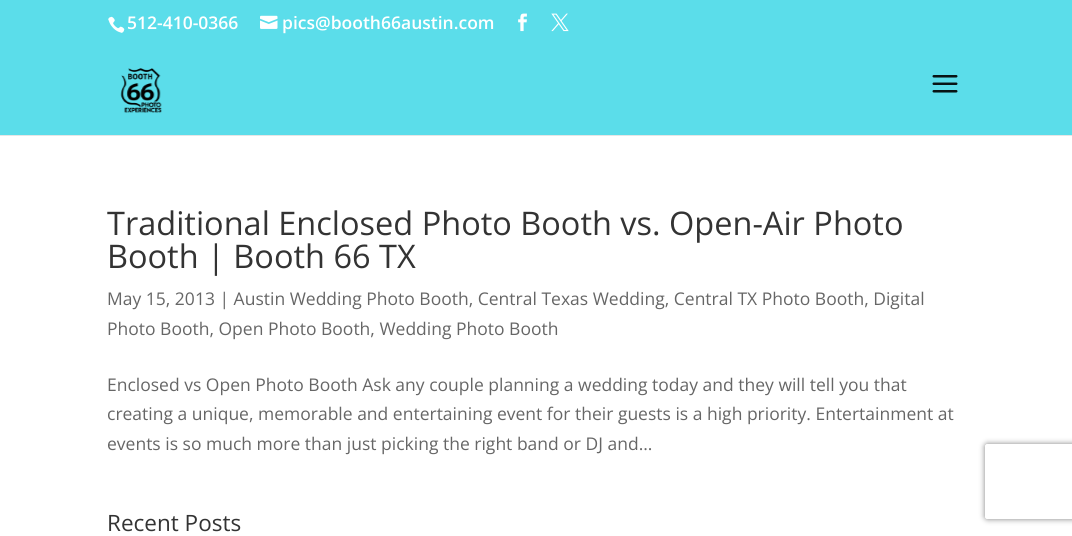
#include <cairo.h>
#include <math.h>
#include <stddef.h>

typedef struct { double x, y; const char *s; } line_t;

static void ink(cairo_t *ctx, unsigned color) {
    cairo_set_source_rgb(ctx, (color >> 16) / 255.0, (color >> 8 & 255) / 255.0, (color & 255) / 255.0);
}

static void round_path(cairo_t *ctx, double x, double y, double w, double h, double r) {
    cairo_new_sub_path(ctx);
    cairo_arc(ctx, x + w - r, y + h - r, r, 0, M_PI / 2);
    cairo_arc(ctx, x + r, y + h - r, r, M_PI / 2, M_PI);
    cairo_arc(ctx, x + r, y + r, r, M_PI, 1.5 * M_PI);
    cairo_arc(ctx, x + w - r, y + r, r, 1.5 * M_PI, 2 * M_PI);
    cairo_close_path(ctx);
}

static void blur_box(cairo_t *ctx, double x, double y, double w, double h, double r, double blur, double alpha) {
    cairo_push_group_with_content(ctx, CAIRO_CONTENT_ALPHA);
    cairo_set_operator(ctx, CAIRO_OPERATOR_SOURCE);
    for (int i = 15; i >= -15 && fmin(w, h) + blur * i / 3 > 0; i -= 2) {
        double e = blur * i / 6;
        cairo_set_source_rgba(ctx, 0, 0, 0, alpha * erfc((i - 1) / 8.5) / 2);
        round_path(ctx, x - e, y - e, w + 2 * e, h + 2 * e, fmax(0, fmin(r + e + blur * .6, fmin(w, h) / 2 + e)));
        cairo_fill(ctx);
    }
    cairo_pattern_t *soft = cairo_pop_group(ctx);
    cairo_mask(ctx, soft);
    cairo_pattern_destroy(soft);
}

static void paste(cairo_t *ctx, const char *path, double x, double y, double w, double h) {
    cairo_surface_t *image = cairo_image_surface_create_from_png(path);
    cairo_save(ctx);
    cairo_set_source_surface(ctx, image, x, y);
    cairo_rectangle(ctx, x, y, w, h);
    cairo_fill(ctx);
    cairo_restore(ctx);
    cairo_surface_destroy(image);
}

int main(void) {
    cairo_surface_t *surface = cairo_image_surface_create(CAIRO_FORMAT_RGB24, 1072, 536);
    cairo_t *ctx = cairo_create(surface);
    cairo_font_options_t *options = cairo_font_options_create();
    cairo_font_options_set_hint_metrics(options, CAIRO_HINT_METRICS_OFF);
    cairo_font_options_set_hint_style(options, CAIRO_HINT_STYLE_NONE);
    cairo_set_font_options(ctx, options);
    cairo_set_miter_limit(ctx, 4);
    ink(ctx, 0xFFFFFF);
    cairo_paint(ctx);
    ink(ctx, 0xE6E6E6);
    cairo_new_path(ctx);
    cairo_move_to(ctx, 0, 135);
    cairo_line_to(ctx, 0, 136);
    cairo_line_to(ctx, 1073, 136);
    cairo_line_to(ctx, 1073, 46);
    cairo_line_to(ctx, 1072, 46);
    cairo_line_to(ctx, 1072, 135);
    cairo_close_path(ctx);
    cairo_fill(ctx);
    ink(ctx, 0x5BDDEA);
    cairo_rectangle(ctx, 0, 0, 1072, 135);
    cairo_fill(ctx);
    paste(ctx, "media/1.png", 120, 68, 42, 45);
    paste(ctx, "media/2.png", 932, 75, 26, 18);
    paste(ctx, "media/3.png", 108, 16, 17, 17);
    cairo_select_font_face(ctx, "Open Sans SemiBold", CAIRO_FONT_SLANT_NORMAL, CAIRO_FONT_WEIGHT_NORMAL);
    cairo_set_font_size(ctx, 17.5);
    ink(ctx, 0xFFFFFF);
    cairo_move_to(ctx, 127, 29);
    cairo_show_text(ctx, "512-410-0366");
    paste(ctx, "media/4.png", 260, 15, 18, 14);
    cairo_move_to(ctx, 282, 29);
    cairo_show_text(ctx, "pics@booth66austin.com");
    paste(ctx, "media/5.png", 518, 13, 9, 19);
    paste(ctx, "media/6.png", 551, 13, 18, 19);
    cairo_select_font_face(ctx, "Open Sans", CAIRO_FONT_SLANT_NORMAL, CAIRO_FONT_WEIGHT_NORMAL);
    cairo_set_font_size(ctx, 32.5);
    ink(ctx, 0x333333);
    cairo_move_to(ctx, 107, 235);
    cairo_show_text(ctx, "Traditional Enclosed Photo Booth vs. Open-Air Photo");
    cairo_move_to(ctx, 107, 268);
    cairo_show_text(ctx, "Booth | Booth 66 TX");
    cairo_set_font_size(ctx, 17.5);
    ink(ctx, 0x666666);
    {
        static const line_t items[] = {
            {107, 305, "May 15, 2013 | Austin Wedding Photo Booth, Central Texas Wedding, Central TX Photo Booth, Digital"},
            {107, 335, "Photo Booth, Open Photo Booth, Wedding Photo Booth"},
            {107, 391, "Enclosed vs Open Photo Booth Ask any couple planning a wedding today and they will tell you that"},
            {107, 420, "creating a unique, memorable and entertaining event for their guests is a high priority. Entertainment at"},
            {107, 450, "events is so much more than just picking the right band or DJ and..."},
        };
        for (size_t i = 0; i < sizeof items / sizeof *items; i++) {
            cairo_move_to(ctx, items[i].x, items[i].y);
            cairo_show_text(ctx, items[i].s);
        }
    }
    cairo_set_font_size(ctx, 22.5);
    ink(ctx, 0x333333);
    cairo_move_to(ctx, 107, 531);
    cairo_show_text(ctx, "Recent Posts");
    cairo_save(ctx);
    cairo_set_fill_rule(ctx, CAIRO_FILL_RULE_EVEN_ODD);
    cairo_new_path(ctx);
    cairo_move_to(ctx, 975, 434);
    cairo_line_to(ctx, 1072, 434);
    cairo_line_to(ctx, 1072, 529);
    cairo_line_to(ctx, 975, 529);
    cairo_close_path(ctx);
    cairo_move_to(ctx, 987.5, 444);
    cairo_line_to(ctx, 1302.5, 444);
    cairo_curve_to(ctx, 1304, 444, 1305, 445, 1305, 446.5);
    cairo_line_to(ctx, 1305, 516.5);
    cairo_curve_to(ctx, 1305, 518, 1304, 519, 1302.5, 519);
    cairo_line_to(ctx, 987.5, 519);
    cairo_curve_to(ctx, 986, 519, 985, 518, 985, 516.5);
    cairo_line_to(ctx, 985, 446.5);
    cairo_curve_to(ctx, 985, 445, 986, 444, 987.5, 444);
    cairo_close_path(ctx);
    cairo_clip(ctx);
    ink(ctx, 0x808080);
    blur_box(ctx, 985, 444, 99, 75, 2.5, 3, 1);
    cairo_restore(ctx);
    cairo_surface_write_to_png(surface, "image.png");
    cairo_font_options_destroy(options);
    cairo_destroy(ctx);
    cairo_surface_destroy(surface);
    return 0;
}
